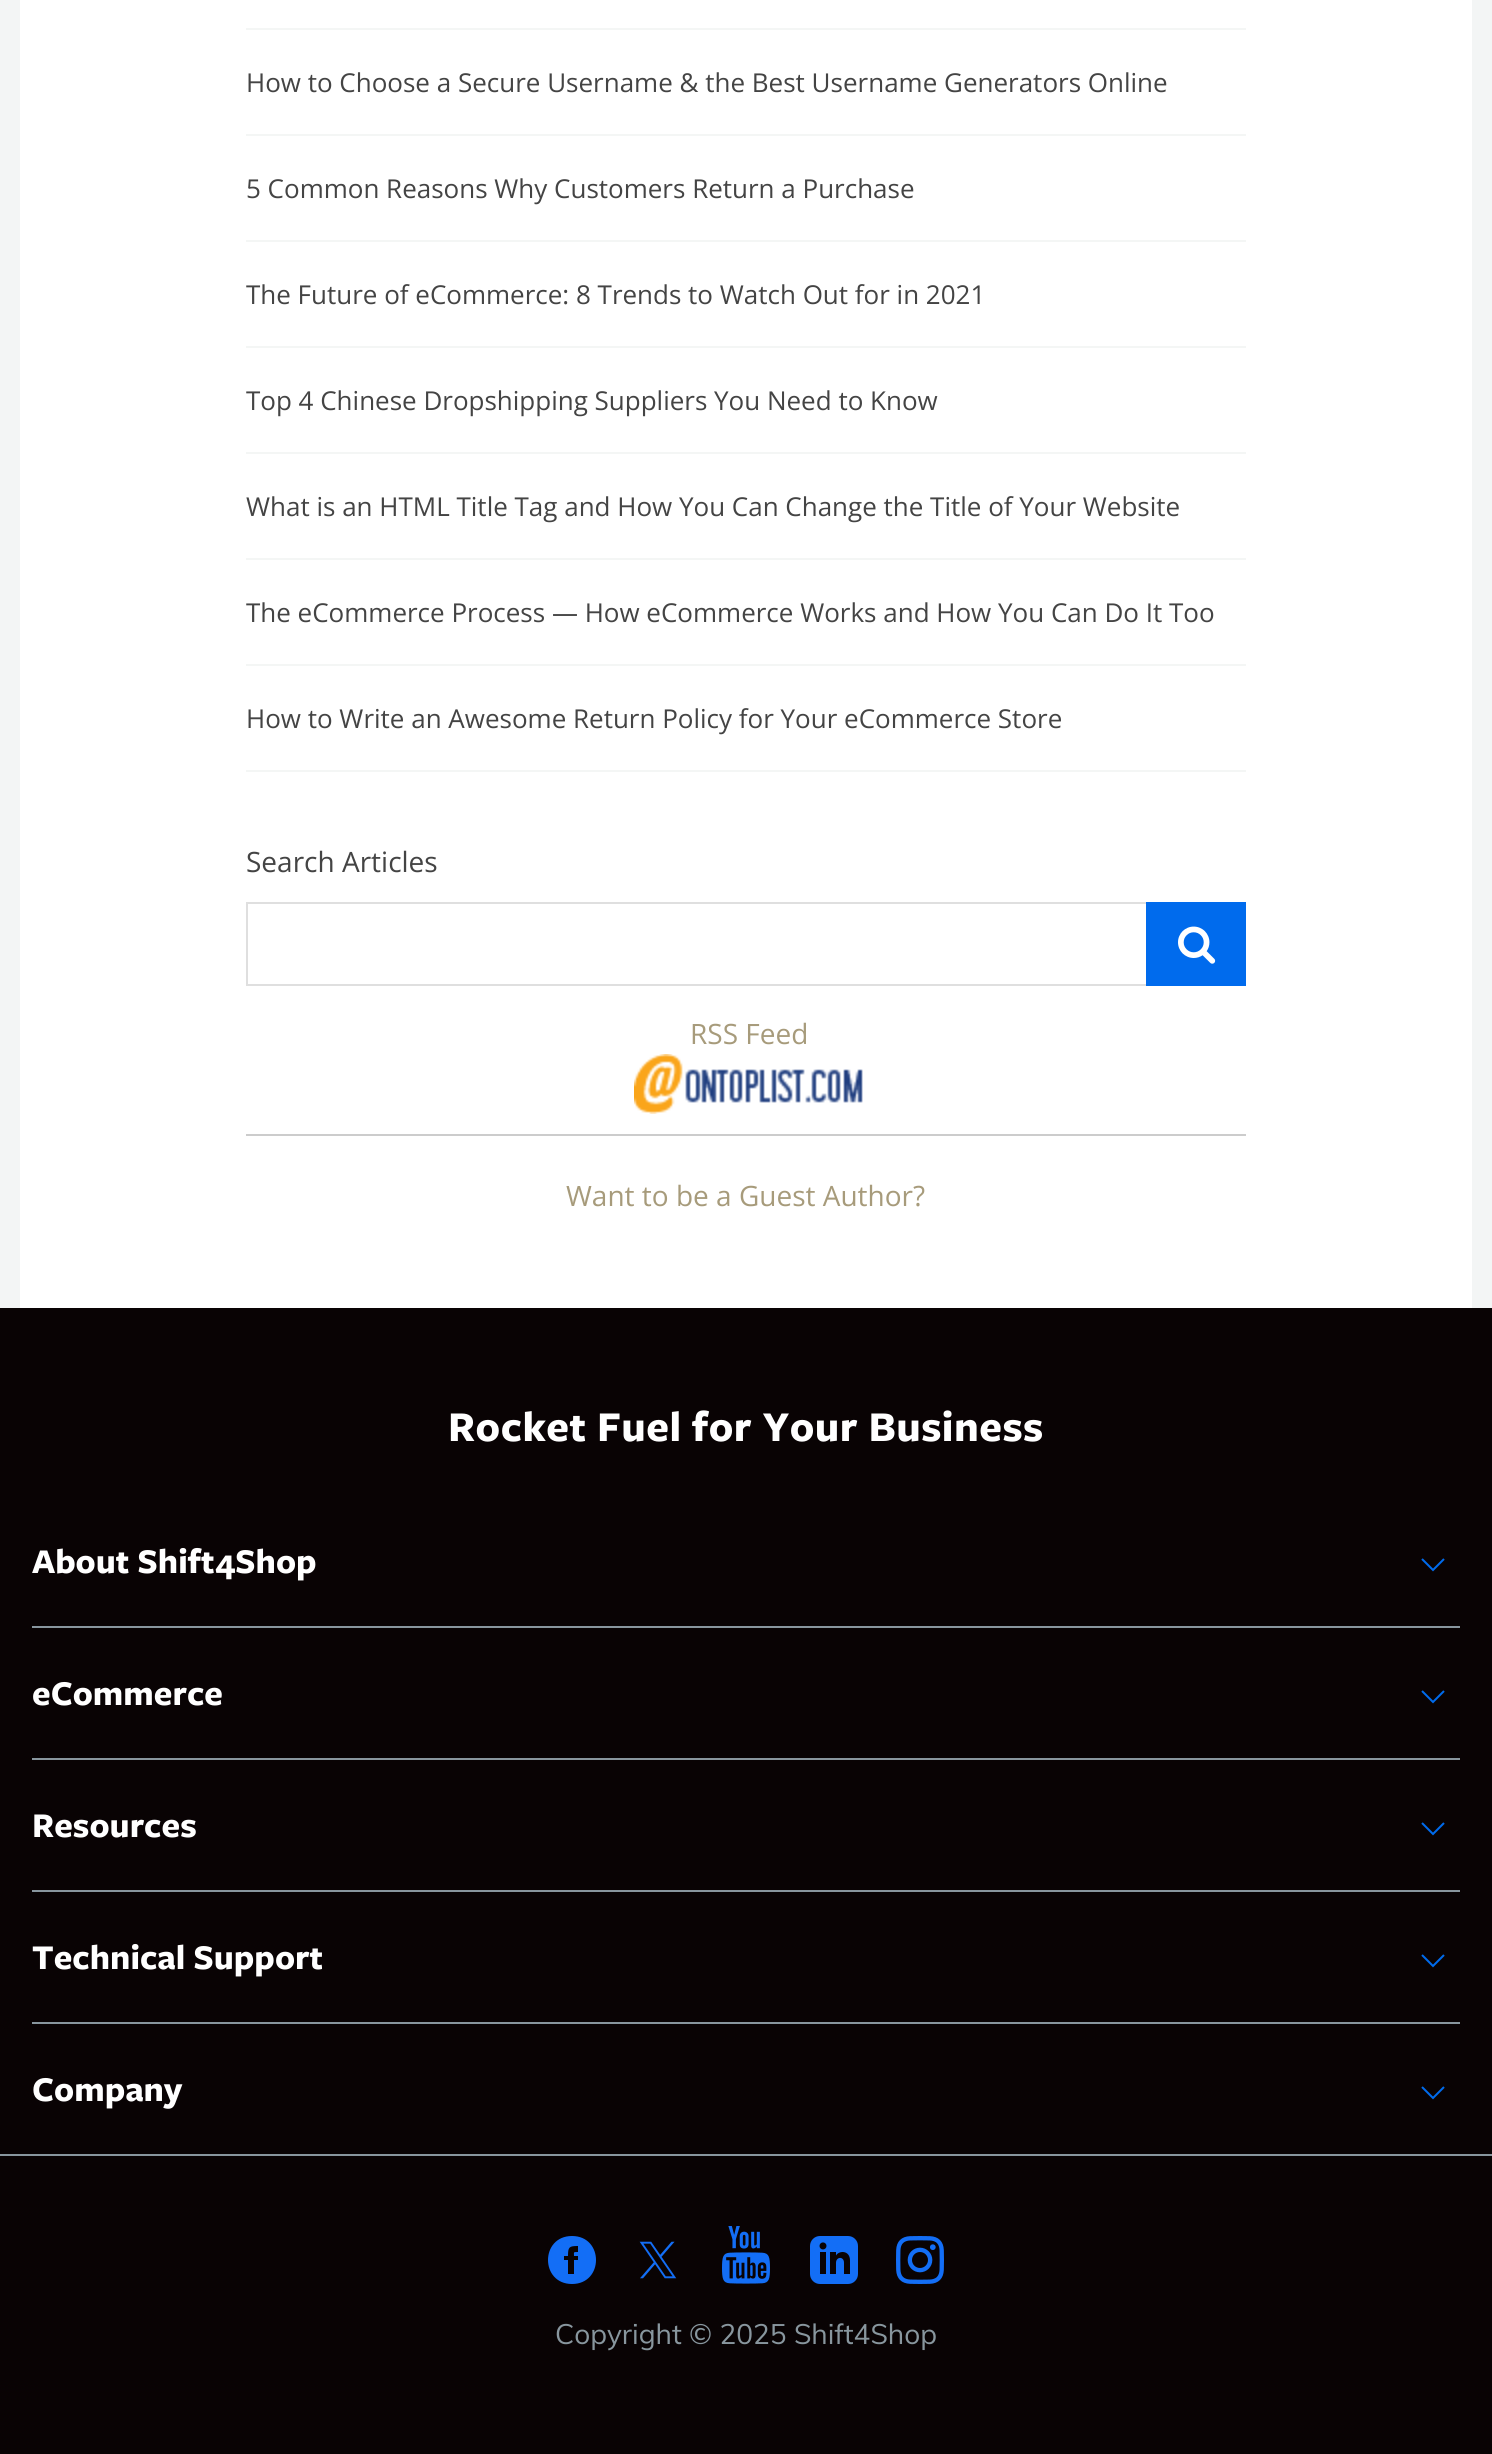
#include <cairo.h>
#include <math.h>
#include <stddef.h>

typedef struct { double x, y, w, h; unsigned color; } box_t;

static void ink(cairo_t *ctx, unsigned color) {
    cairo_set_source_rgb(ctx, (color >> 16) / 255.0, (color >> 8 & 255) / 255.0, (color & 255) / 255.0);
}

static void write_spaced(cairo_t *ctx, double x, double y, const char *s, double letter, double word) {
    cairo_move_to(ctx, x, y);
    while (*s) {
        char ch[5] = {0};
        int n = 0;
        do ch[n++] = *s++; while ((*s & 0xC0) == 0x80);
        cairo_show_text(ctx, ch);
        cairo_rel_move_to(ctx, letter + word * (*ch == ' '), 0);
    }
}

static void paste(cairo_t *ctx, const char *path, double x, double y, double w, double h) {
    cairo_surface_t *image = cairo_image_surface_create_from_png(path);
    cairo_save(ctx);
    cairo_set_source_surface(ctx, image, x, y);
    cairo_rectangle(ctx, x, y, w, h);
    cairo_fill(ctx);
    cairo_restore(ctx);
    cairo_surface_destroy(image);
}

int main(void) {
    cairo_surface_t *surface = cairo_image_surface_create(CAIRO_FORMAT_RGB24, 1492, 2454);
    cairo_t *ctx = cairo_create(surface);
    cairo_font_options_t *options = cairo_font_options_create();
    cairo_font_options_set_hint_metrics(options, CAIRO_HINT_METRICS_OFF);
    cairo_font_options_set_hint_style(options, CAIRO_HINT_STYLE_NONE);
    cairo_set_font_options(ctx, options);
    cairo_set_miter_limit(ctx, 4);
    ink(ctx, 0xF3F5F5);
    cairo_paint(ctx);
    {
        static const box_t items[] = {
            {20, 0, 1452, 1308, 0xFFFFFF},
            {246, 28, 1000, 2, 0xF4F6F5},
            {246, 134, 1000, 2, 0xF4F6F5},
        };
        for (size_t i = 0; i < sizeof items / sizeof *items; i++) {
            ink(ctx, items[i].color);
            cairo_rectangle(ctx, items[i].x, items[i].y, items[i].w, items[i].h);
            cairo_fill(ctx);
        }
    }
    cairo_select_font_face(ctx, "Open Sans", CAIRO_FONT_SLANT_NORMAL, CAIRO_FONT_WEIGHT_NORMAL);
    cairo_set_font_size(ctx, 26);
    ink(ctx, 0x444444);
    cairo_move_to(ctx, 246, 92);
    cairo_show_text(ctx, "How to Choose a Secure Username & the Best Username Generators Online");
    ink(ctx, 0xF4F6F5);
    cairo_rectangle(ctx, 246, 240, 1000, 2);
    cairo_fill(ctx);
    ink(ctx, 0x444444);
    cairo_move_to(ctx, 246, 198);
    cairo_show_text(ctx, "5 Common Reasons Why Customers Return a Purchase");
    ink(ctx, 0xF4F6F5);
    cairo_rectangle(ctx, 246, 346, 1000, 2);
    cairo_fill(ctx);
    ink(ctx, 0x444444);
    cairo_move_to(ctx, 246, 304);
    cairo_show_text(ctx, "The Future of eCommerce: 8 Trends to Watch Out for in 2021");
    ink(ctx, 0xF4F6F5);
    cairo_rectangle(ctx, 246, 452, 1000, 2);
    cairo_fill(ctx);
    ink(ctx, 0x444444);
    cairo_move_to(ctx, 246, 410);
    cairo_show_text(ctx, "Top 4 Chinese Dropshipping Suppliers You Need to Know");
    ink(ctx, 0xF4F6F5);
    cairo_rectangle(ctx, 246, 558, 1000, 2);
    cairo_fill(ctx);
    ink(ctx, 0x444444);
    cairo_move_to(ctx, 246, 516);
    cairo_show_text(ctx, "What is an HTML Title Tag and How You Can Change the Title of Your Website");
    ink(ctx, 0xF4F6F5);
    cairo_rectangle(ctx, 246, 664, 1000, 2);
    cairo_fill(ctx);
    ink(ctx, 0x444444);
    cairo_move_to(ctx, 246, 622);
    cairo_show_text(ctx, "The eCommerce Process — How eCommerce Works and How You Can Do It Too");
    ink(ctx, 0xF4F6F5);
    cairo_rectangle(ctx, 246, 770, 1000, 2);
    cairo_fill(ctx);
    ink(ctx, 0x444444);
    cairo_move_to(ctx, 246, 728);
    cairo_show_text(ctx, "How to Write an Awesome Return Policy for Your eCommerce Store");
    cairo_set_font_size(ctx, 28);
    cairo_move_to(ctx, 246, 872);
    cairo_show_text(ctx, "Search Articles");
    cairo_rectangle(ctx, 247, 903, 998, 82);
    ink(ctx, 0xDFDFDF);
    cairo_stroke(ctx);
    ink(ctx, 0x006BED);
    cairo_rectangle(ctx, 1146, 902, 100, 84);
    cairo_fill(ctx);
    paste(ctx, "media/1.png", 1178, 926, 38, 38);
    ink(ctx, 0xA79B7B);
    cairo_move_to(ctx, 690, 1044);
    cairo_show_text(ctx, "RSS Feed");
    paste(ctx, "media/2.png", 634, 1054, 229, 60);
    ink(ctx, 0xCCCCCC);
    cairo_rectangle(ctx, 246, 1134, 1000, 2);
    cairo_fill(ctx);
    ink(ctx, 0xA79B7B);
    cairo_move_to(ctx, 566, 1206);
    cairo_show_text(ctx, "Want to be a Guest Author?");
    ink(ctx, 0x090304);
    cairo_rectangle(ctx, 0, 1308, 1492, 1146);
    cairo_fill(ctx);
    cairo_select_font_face(ctx, "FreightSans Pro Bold", CAIRO_FONT_SLANT_NORMAL, CAIRO_FONT_WEIGHT_BOLD);
    cairo_set_font_size(ctx, 44);
    ink(ctx, 0xFFFFFF);
    write_spaced(ctx, 448, 1441, "Rocket Fuel for Your Business", 0.45, 0);
    ink(ctx, 0x88969E);
    cairo_rectangle(ctx, 32, 1626, 1428, 2);
    cairo_fill(ctx);
    cairo_set_font_size(ctx, 36);
    ink(ctx, 0xFFFFFF);
    cairo_move_to(ctx, 32, 1573);
    cairo_show_text(ctx, "About Shift4Shop");
    cairo_new_path(ctx);
    cairo_move_to(ctx, 1444, 1559);
    cairo_line_to(ctx, 1433, 1570);
    cairo_line_to(ctx, 1422, 1559);
    ink(ctx, 0x006BED);
    cairo_stroke(ctx);
    ink(ctx, 0x88969E);
    cairo_rectangle(ctx, 32, 1758, 1428, 2);
    cairo_fill(ctx);
    ink(ctx, 0xFFFFFF);
    cairo_move_to(ctx, 32, 1705);
    cairo_show_text(ctx, "eCommerce");
    cairo_new_path(ctx);
    cairo_move_to(ctx, 1444, 1691);
    cairo_line_to(ctx, 1433, 1702);
    cairo_line_to(ctx, 1422, 1691);
    ink(ctx, 0x006BED);
    cairo_stroke(ctx);
    ink(ctx, 0x88969E);
    cairo_rectangle(ctx, 32, 1890, 1428, 2);
    cairo_fill(ctx);
    ink(ctx, 0xFFFFFF);
    cairo_move_to(ctx, 32, 1837);
    cairo_show_text(ctx, "Resources");
    cairo_new_path(ctx);
    cairo_move_to(ctx, 1444, 1823);
    cairo_line_to(ctx, 1433, 1834);
    cairo_line_to(ctx, 1422, 1823);
    ink(ctx, 0x006BED);
    cairo_stroke(ctx);
    ink(ctx, 0x88969E);
    cairo_rectangle(ctx, 32, 2022, 1428, 2);
    cairo_fill(ctx);
    ink(ctx, 0xFFFFFF);
    cairo_move_to(ctx, 32, 1969);
    cairo_show_text(ctx, "Technical Support");
    cairo_new_path(ctx);
    cairo_move_to(ctx, 1444, 1955);
    cairo_line_to(ctx, 1433, 1966);
    cairo_line_to(ctx, 1422, 1955);
    ink(ctx, 0x006BED);
    cairo_stroke(ctx);
    ink(ctx, 0xFFFFFF);
    cairo_move_to(ctx, 32, 2101);
    cairo_show_text(ctx, "Company");
    cairo_new_path(ctx);
    cairo_move_to(ctx, 1444, 2087);
    cairo_line_to(ctx, 1433, 2098);
    cairo_line_to(ctx, 1422, 2087);
    ink(ctx, 0x006BED);
    cairo_stroke(ctx);
    ink(ctx, 0x88969E);
    cairo_rectangle(ctx, 0, 2154, 1492, 2);
    cairo_fill(ctx);
    ink(ctx, 0x136EF6);
    cairo_new_path(ctx);
    cairo_move_to(ctx, 572, 2236);
    cairo_curve_to(ctx, 540, 2236, 540, 2284, 572, 2284);
    cairo_curve_to(ctx, 604, 2284, 604, 2236, 572, 2236);
    cairo_close_path(ctx);
    cairo_move_to(ctx, 578, 2252);
    cairo_curve_to(ctx, 573, 2252, 574, 2252, 574, 2256);
    cairo_line_to(ctx, 578, 2256);
    cairo_line_to(ctx, 578, 2260);
    cairo_line_to(ctx, 574, 2260);
    cairo_line_to(ctx, 574, 2274);
    cairo_line_to(ctx, 568, 2274);
    cairo_line_to(ctx, 568, 2260);
    cairo_line_to(ctx, 564, 2260);
    cairo_line_to(ctx, 564, 2256);
    cairo_line_to(ctx, 568, 2256);
    cairo_curve_to(ctx, 568, 2247, 569, 2246, 578, 2246);
    cairo_close_path(ctx);
    cairo_fill(ctx);
    paste(ctx, "media/3.png", 639, 2241, 38, 38);
    paste(ctx, "media/4.png", 722, 2226, 48, 58);
    paste(ctx, "media/5.png", 810, 2236, 48, 48);
    paste(ctx, "media/6.png", 896, 2236, 48, 48);
    cairo_select_font_face(ctx, "Muli", CAIRO_FONT_SLANT_NORMAL, CAIRO_FONT_WEIGHT_NORMAL);
    cairo_set_font_size(ctx, 28);
    ink(ctx, 0x88969E);
    cairo_move_to(ctx, 555, 2344);
    cairo_show_text(ctx, "Copyright © 2025 Shift4Shop");
    cairo_surface_write_to_png(surface, "image.png");
    cairo_font_options_destroy(options);
    cairo_destroy(ctx);
    cairo_surface_destroy(surface);
    return 0;
}
